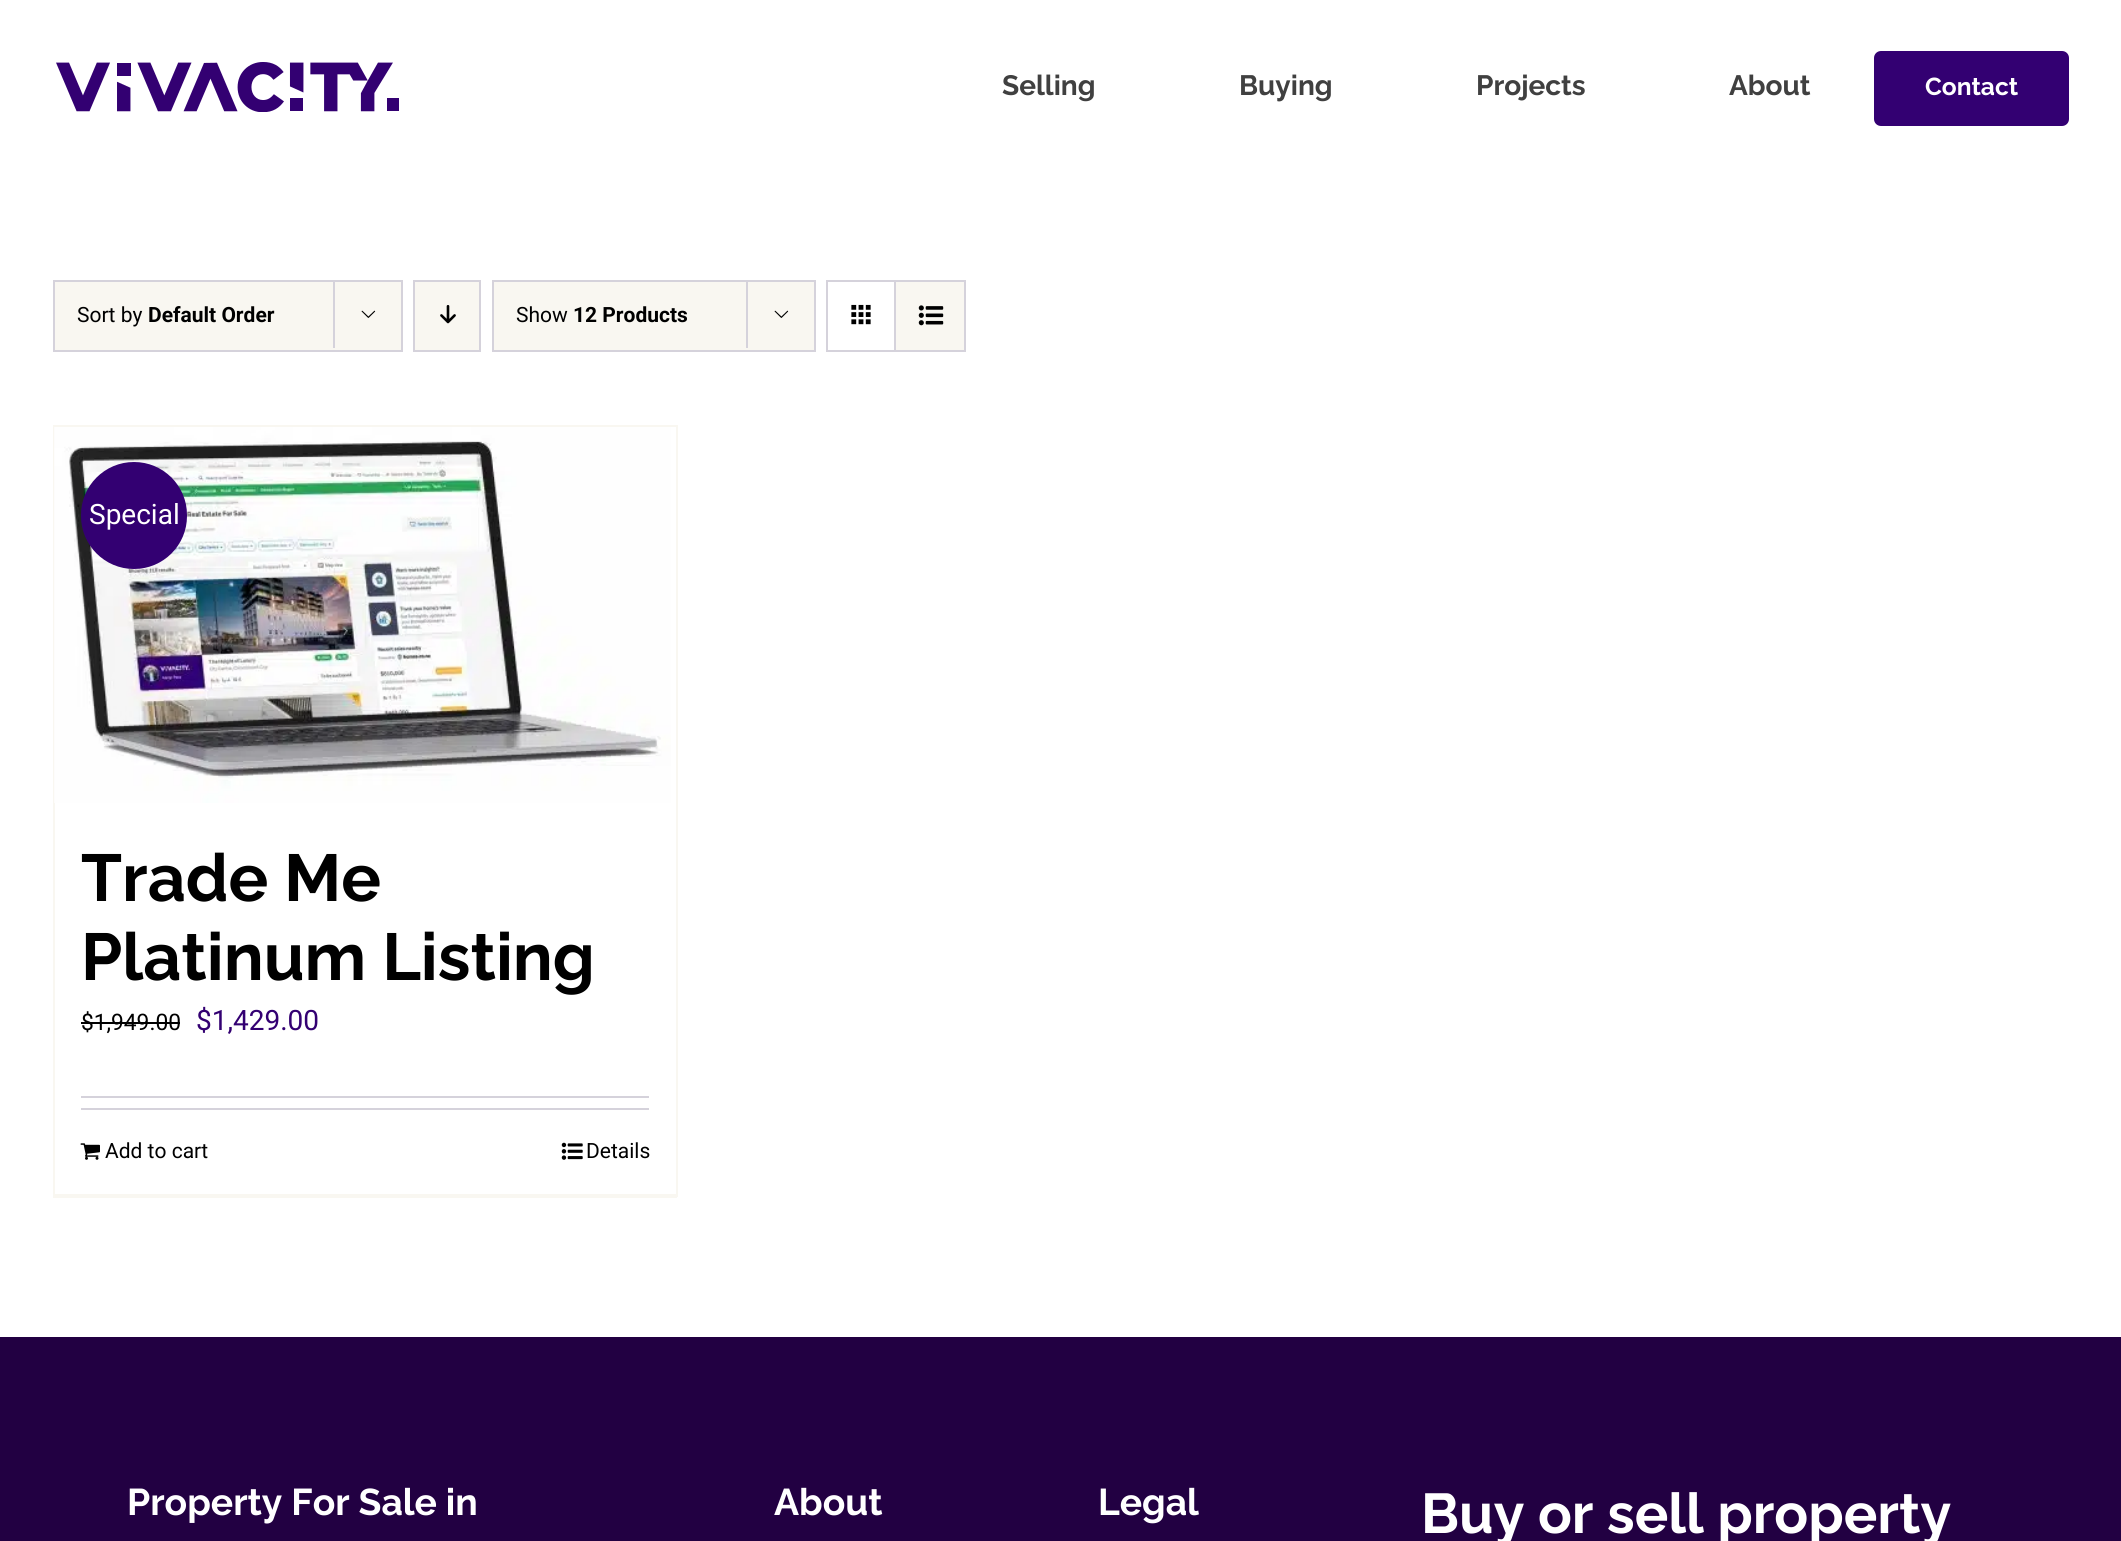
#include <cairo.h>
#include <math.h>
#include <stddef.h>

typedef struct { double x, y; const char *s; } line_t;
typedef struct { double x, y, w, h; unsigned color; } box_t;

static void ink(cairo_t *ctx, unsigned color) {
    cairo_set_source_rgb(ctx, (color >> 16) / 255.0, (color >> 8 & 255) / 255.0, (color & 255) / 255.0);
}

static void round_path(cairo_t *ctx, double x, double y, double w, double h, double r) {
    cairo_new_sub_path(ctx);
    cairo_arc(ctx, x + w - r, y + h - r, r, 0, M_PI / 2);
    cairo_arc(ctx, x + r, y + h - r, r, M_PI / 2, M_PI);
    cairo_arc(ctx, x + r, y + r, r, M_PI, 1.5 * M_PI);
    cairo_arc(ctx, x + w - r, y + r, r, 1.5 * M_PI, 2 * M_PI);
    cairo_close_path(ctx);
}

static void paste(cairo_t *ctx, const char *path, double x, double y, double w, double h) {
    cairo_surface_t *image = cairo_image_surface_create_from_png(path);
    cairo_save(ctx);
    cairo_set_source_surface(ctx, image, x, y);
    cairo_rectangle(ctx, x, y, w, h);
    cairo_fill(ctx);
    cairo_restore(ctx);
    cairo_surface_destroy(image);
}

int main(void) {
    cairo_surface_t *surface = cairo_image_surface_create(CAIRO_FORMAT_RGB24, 2121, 1541);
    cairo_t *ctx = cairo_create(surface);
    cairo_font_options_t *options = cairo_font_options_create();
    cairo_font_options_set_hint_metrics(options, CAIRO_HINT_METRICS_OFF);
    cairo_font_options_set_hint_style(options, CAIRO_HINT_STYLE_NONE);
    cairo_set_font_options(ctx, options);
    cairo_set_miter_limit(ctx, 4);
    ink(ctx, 0xFFFFFF);
    cairo_paint(ctx);
    paste(ctx, "media/1.png", 56, 62, 343, 50);
    cairo_select_font_face(ctx, "Raleway", CAIRO_FONT_SLANT_NORMAL, CAIRO_FONT_WEIGHT_BOLD);
    cairo_set_font_size(ctx, 28);
    ink(ctx, 0x404040);
    {
        static const line_t items[] = {
            {1002, 95, "Selling"},
            {1239, 95, "Buying"},
            {1476, 95, "Projects"},
            {1729, 95, "About"},
        };
        for (size_t i = 0; i < sizeof items / sizeof *items; i++) {
            cairo_move_to(ctx, items[i].x, items[i].y);
            cairo_show_text(ctx, items[i].s);
        }
    }
    ink(ctx, 0x330072);
    round_path(ctx, 1874, 51, 195, 75, 7);
    cairo_fill(ctx);
    cairo_set_font_size(ctx, 24.5);
    ink(ctx, 0xFFFFFF);
    cairo_move_to(ctx, 1925, 95);
    cairo_show_text(ctx, "Contact");
    ink(ctx, 0xF9F7F1);
    cairo_rectangle(ctx, 54, 281, 348, 70);
    cairo_fill_preserve(ctx);
    ink(ctx, 0xD5D2DB);
    cairo_stroke(ctx);
    cairo_select_font_face(ctx, "Roboto", CAIRO_FONT_SLANT_NORMAL, CAIRO_FONT_WEIGHT_NORMAL);
    cairo_set_font_size(ctx, 21);
    ink(ctx, 0x000000);
    cairo_move_to(ctx, 77, 322);
    cairo_show_text(ctx, "Sort by");
    cairo_select_font_face(ctx, "Roboto", CAIRO_FONT_SLANT_NORMAL, CAIRO_FONT_WEIGHT_BOLD);
    cairo_move_to(ctx, 148, 322);
    cairo_show_text(ctx, "Default Order");
    ink(ctx, 0xD5D2DB);
    cairo_rectangle(ctx, 333, 280, 2, 68);
    cairo_fill(ctx);
    paste(ctx, "media/2.png", 361, 310, 15, 8);
    ink(ctx, 0xF9F7F1);
    cairo_rectangle(ctx, 414, 281, 66, 70);
    cairo_fill_preserve(ctx);
    ink(ctx, 0xD5D2DB);
    cairo_stroke(ctx);
    paste(ctx, "media/3.png", 440, 305, 16, 19);
    ink(ctx, 0xF9F7F1);
    cairo_rectangle(ctx, 493, 281, 322, 70);
    cairo_fill_preserve(ctx);
    ink(ctx, 0xD5D2DB);
    cairo_stroke(ctx);
    cairo_select_font_face(ctx, "Roboto", CAIRO_FONT_SLANT_NORMAL, CAIRO_FONT_WEIGHT_NORMAL);
    ink(ctx, 0x000000);
    cairo_move_to(ctx, 516, 322);
    cairo_show_text(ctx, "Show");
    cairo_select_font_face(ctx, "Roboto", CAIRO_FONT_SLANT_NORMAL, CAIRO_FONT_WEIGHT_BOLD);
    cairo_move_to(ctx, 573, 322);
    cairo_show_text(ctx, "12 Products");
    ink(ctx, 0xD5D2DB);
    cairo_rectangle(ctx, 746, 280, 2, 68);
    cairo_fill(ctx);
    paste(ctx, "media/2.png", 774, 310, 15, 8);
    cairo_rectangle(ctx, 827, 281, 138, 70);
    cairo_stroke(ctx);
    cairo_rectangle(ctx, 894, 282, 2, 68);
    cairo_fill(ctx);
    paste(ctx, "media/4.png", 851, 304, 20, 21);
    ink(ctx, 0xF9F7F1);
    cairo_rectangle(ctx, 896, 282, 68, 68);
    cairo_fill(ctx);
    paste(ctx, "media/5.png", 918, 305, 26, 21);
    {
        static const box_t items[] = {
            {53, 425, 624, 2, 0xF9F7F1},
            {676, 425, 2, 772, 0xF9F7F1},
            {53, 1194, 624, 4, 0xF9F7F1},
            {53, 425, 2, 772, 0xF9F7F1},
        };
        for (size_t i = 0; i < sizeof items / sizeof *items; i++) {
            ink(ctx, items[i].color);
            cairo_rectangle(ctx, items[i].x, items[i].y, items[i].w, items[i].h);
            cairo_fill(ctx);
        }
    }
    paste(ctx, "media/6.png", 54, 427, 617, 376);
    ink(ctx, 0x330072);
    round_path(ctx, 81, 462, 106, 107, 53);
    cairo_fill(ctx);
    cairo_select_font_face(ctx, "Roboto", CAIRO_FONT_SLANT_NORMAL, CAIRO_FONT_WEIGHT_NORMAL);
    cairo_set_font_size(ctx, 28);
    ink(ctx, 0xFFFFFF);
    cairo_move_to(ctx, 89, 524);
    cairo_show_text(ctx, "Special");
    cairo_select_font_face(ctx, "Raleway", CAIRO_FONT_SLANT_NORMAL, CAIRO_FONT_WEIGHT_BOLD);
    cairo_set_font_size(ctx, 66.25);
    ink(ctx, 0x000000);
    cairo_move_to(ctx, 81, 901);
    cairo_show_text(ctx, "Trade Me");
    cairo_move_to(ctx, 81, 980);
    cairo_show_text(ctx, "Platinum Listing");
    cairo_select_font_face(ctx, "Roboto", CAIRO_FONT_SLANT_NORMAL, CAIRO_FONT_WEIGHT_NORMAL);
    cairo_set_font_size(ctx, 22.75);
    cairo_move_to(ctx, 81, 1030);
    cairo_show_text(ctx, "$1,949.00");
    cairo_rectangle(ctx, 81, 1022, 99, 2);
    cairo_fill(ctx);
    cairo_set_font_size(ctx, 28);
    ink(ctx, 0x330072);
    cairo_move_to(ctx, 196, 1030);
    cairo_show_text(ctx, "$1,429.00");
    ink(ctx, 0xD5D2DB);
    cairo_rectangle(ctx, 81, 1096, 568, 2);
    cairo_fill(ctx);
    cairo_rectangle(ctx, 81, 1108, 568, 2);
    cairo_fill(ctx);
    paste(ctx, "media/7.png", 80, 1143, 20, 17);
    cairo_set_font_size(ctx, 21);
    ink(ctx, 0x000000);
    cairo_move_to(ctx, 105, 1158);
    cairo_show_text(ctx, "Add to cart");
    paste(ctx, "media/8.png", 561, 1142, 22, 18);
    cairo_move_to(ctx, 586, 1158);
    cairo_show_text(ctx, "Details");
    ink(ctx, 0x220042);
    cairo_rectangle(ctx, 0, 1337, 2121, 204);
    cairo_fill(ctx);
    cairo_select_font_face(ctx, "Raleway", CAIRO_FONT_SLANT_NORMAL, CAIRO_FONT_WEIGHT_BOLD);
    cairo_set_font_size(ctx, 37.25);
    ink(ctx, 0xFFFFFF);
    {
        static const line_t items[] = {
            {127, 1515, "Property For Sale in"},
            {774, 1515, "About"},
            {1098, 1515, "Legal"},
        };
        for (size_t i = 0; i < sizeof items / sizeof *items; i++) {
            cairo_move_to(ctx, items[i].x, items[i].y);
            cairo_show_text(ctx, items[i].s);
        }
    }
    cairo_set_font_size(ctx, 56);
    cairo_move_to(ctx, 1421, 1533);
    cairo_show_text(ctx, "Buy or sell property");
    cairo_surface_write_to_png(surface, "image.png");
    cairo_font_options_destroy(options);
    cairo_destroy(ctx);
    cairo_surface_destroy(surface);
    return 0;
}
